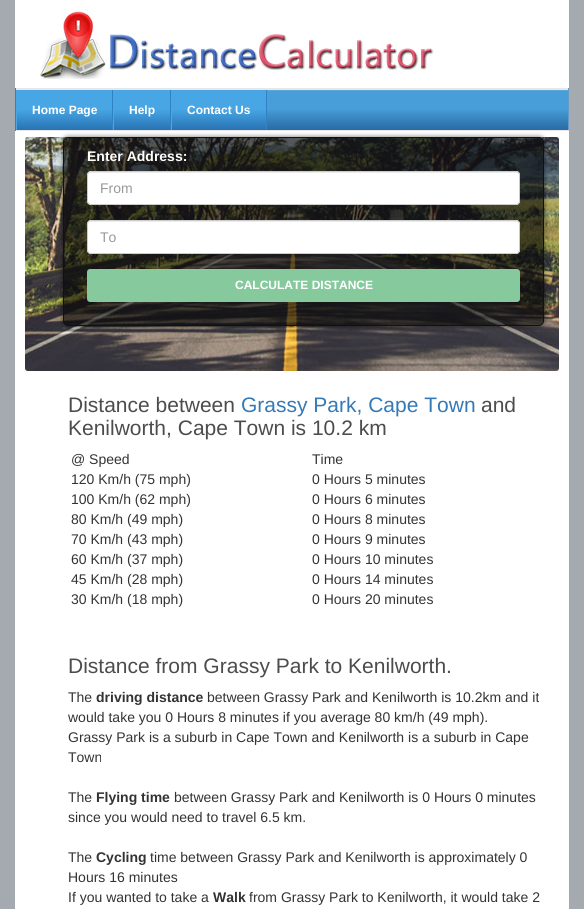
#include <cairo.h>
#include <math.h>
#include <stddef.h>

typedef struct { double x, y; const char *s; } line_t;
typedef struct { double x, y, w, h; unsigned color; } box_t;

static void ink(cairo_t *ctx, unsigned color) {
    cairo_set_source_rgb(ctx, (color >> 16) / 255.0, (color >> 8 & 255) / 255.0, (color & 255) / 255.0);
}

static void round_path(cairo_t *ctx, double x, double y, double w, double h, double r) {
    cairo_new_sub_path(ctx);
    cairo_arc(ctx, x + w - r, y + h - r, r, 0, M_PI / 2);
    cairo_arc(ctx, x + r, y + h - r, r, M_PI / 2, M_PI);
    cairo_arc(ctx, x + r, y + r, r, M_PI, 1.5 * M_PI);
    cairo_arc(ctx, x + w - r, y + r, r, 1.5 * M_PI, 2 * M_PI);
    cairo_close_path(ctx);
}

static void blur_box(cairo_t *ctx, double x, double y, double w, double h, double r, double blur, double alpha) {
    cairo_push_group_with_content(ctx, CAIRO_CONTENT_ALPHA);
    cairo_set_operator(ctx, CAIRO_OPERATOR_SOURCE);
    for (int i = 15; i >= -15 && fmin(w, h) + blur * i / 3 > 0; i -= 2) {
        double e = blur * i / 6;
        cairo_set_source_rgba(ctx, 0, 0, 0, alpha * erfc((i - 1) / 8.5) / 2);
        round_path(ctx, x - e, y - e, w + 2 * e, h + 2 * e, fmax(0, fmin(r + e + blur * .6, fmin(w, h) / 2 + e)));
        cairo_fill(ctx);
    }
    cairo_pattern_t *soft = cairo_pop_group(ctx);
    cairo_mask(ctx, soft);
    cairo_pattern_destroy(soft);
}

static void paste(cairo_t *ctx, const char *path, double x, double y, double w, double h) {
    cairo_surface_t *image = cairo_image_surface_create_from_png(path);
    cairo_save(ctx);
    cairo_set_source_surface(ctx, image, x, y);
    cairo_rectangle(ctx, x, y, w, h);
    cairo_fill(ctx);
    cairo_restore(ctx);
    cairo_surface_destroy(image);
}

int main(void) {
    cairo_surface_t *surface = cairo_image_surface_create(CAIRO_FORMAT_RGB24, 584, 909);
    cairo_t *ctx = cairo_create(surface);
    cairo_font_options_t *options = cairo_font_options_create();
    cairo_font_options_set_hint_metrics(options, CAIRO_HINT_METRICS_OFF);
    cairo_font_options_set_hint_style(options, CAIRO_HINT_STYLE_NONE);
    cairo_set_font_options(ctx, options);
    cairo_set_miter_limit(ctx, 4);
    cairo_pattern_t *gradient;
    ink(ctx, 0xA5AAB0);
    cairo_paint(ctx);
    ink(ctx, 0xFFFFFF);
    cairo_rectangle(ctx, 15, 0, 554, 88);
    cairo_fill(ctx);
    paste(ctx, "media/1.png", 40, 9, 397, 70);
    gradient = cairo_pattern_create_linear(16, 130, 16, 89);
    cairo_pattern_add_color_stop_rgba(gradient, 0.03, 0.169, 0.427, 0.655, 1);
    cairo_pattern_add_color_stop_rgba(gradient, 0.52, 0.278, 0.62, 0.847, 1);
    cairo_set_source(ctx, gradient);
    cairo_pattern_destroy(gradient);
    cairo_rectangle(ctx, 267, 91, 301, 39);
    cairo_fill(ctx);
    {
        static const box_t items[] = {
            {15, 88, 554, 1, 0xE7E7E7},
            {568, 88, 1, 43, 0x639CCA},
            {15, 130, 554, 1, 0xE7E7E7},
            {15, 88, 1, 43, 0x3481B7},
            {267, 90, 301, 1, 0x59A8DC},
            {16, 89, 552, 1, 0xE7E7E7},
        };
        for (size_t i = 0; i < sizeof items / sizeof *items; i++) {
            ink(ctx, items[i].color);
            cairo_rectangle(ctx, items[i].x, items[i].y, items[i].w, items[i].h);
            cairo_fill(ctx);
        }
    }
    gradient = cairo_pattern_create_linear(17, 130, 17, 90);
    cairo_pattern_add_color_stop_rgba(gradient, 0.03, 0.165, 0.459, 0.714, 1);
    cairo_pattern_add_color_stop_rgba(gradient, 0.52, 0.282, 0.651, 0.894, 1);
    cairo_set_source(ctx, gradient);
    cairo_pattern_destroy(gradient);
    cairo_rectangle(ctx, 17, 90, 95, 40);
    cairo_fill(ctx);
    ink(ctx, 0x3082C5);
    cairo_rectangle(ctx, 112, 90, 1, 40);
    cairo_fill(ctx);
    ink(ctx, 0x4BA4E3);
    cairo_rectangle(ctx, 16, 90, 1, 40);
    cairo_fill(ctx);
    cairo_select_font_face(ctx, "Liberation Sans", CAIRO_FONT_SLANT_NORMAL, CAIRO_FONT_WEIGHT_BOLD);
    cairo_set_font_size(ctx, 12);
    ink(ctx, 0xFFFFFF);
    cairo_move_to(ctx, 32, 114);
    cairo_show_text(ctx, "Home Page");
    gradient = cairo_pattern_create_linear(114, 130, 114, 90);
    cairo_pattern_add_color_stop_rgba(gradient, 0.03, 0.165, 0.459, 0.714, 1);
    cairo_pattern_add_color_stop_rgba(gradient, 0.52, 0.282, 0.651, 0.894, 1);
    cairo_set_source(ctx, gradient);
    cairo_pattern_destroy(gradient);
    cairo_rectangle(ctx, 114, 90, 56, 40);
    cairo_fill(ctx);
    ink(ctx, 0x3082C5);
    cairo_rectangle(ctx, 170, 90, 1, 40);
    cairo_fill(ctx);
    ink(ctx, 0x4BA4E3);
    cairo_rectangle(ctx, 113, 90, 1, 40);
    cairo_fill(ctx);
    ink(ctx, 0xFFFFFF);
    cairo_move_to(ctx, 129, 114);
    cairo_show_text(ctx, "Help");
    gradient = cairo_pattern_create_linear(172, 130, 172, 90);
    cairo_pattern_add_color_stop_rgba(gradient, 0.03, 0.165, 0.459, 0.714, 1);
    cairo_pattern_add_color_stop_rgba(gradient, 0.52, 0.282, 0.651, 0.894, 1);
    cairo_set_source(ctx, gradient);
    cairo_pattern_destroy(gradient);
    cairo_rectangle(ctx, 172, 90, 94, 40);
    cairo_fill(ctx);
    ink(ctx, 0x3082C5);
    cairo_rectangle(ctx, 266, 90, 1, 40);
    cairo_fill(ctx);
    ink(ctx, 0x4BA4E3);
    cairo_rectangle(ctx, 171, 90, 1, 40);
    cairo_fill(ctx);
    ink(ctx, 0xFFFFFF);
    cairo_move_to(ctx, 187, 114);
    cairo_show_text(ctx, "Contact Us");
    cairo_rectangle(ctx, 15, 131, 554, 778);
    cairo_fill(ctx);
    paste(ctx, "media/2.png", 25, 137, 534, 234);
    cairo_save(ctx);
    cairo_set_fill_rule(ctx, CAIRO_FILL_RULE_EVEN_ODD);
    cairo_new_path(ctx);
    cairo_move_to(ctx, 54, 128);
    cairo_line_to(ctx, 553, 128);
    cairo_line_to(ctx, 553, 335);
    cairo_line_to(ctx, 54, 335);
    cairo_close_path(ctx);
    cairo_move_to(ctx, 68, 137);
    cairo_line_to(ctx, 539, 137);
    cairo_curve_to(ctx, 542, 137, 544, 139, 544, 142);
    cairo_line_to(ctx, 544, 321);
    cairo_curve_to(ctx, 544, 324, 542, 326, 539, 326);
    cairo_line_to(ctx, 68, 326);
    cairo_curve_to(ctx, 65, 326, 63, 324, 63, 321);
    cairo_line_to(ctx, 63, 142);
    cairo_curve_to(ctx, 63, 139, 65, 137, 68, 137);
    cairo_close_path(ctx);
    cairo_clip(ctx);
    ink(ctx, 0x000000);
    blur_box(ctx, 63, 137, 481, 189, 5, 2.5, 0.6);
    cairo_restore(ctx);
    cairo_set_source_rgba(ctx, 0, 0, 0, 0.6);
    round_path(ctx, 63.5, 137.5, 480, 188, 4.5);
    cairo_fill_preserve(ctx);
    ink(ctx, 0x111111);
    cairo_set_line_width(ctx, 1);
    cairo_stroke(ctx);
    cairo_set_font_size(ctx, 14);
    ink(ctx, 0xFFFFFF);
    cairo_move_to(ctx, 87, 161);
    cairo_show_text(ctx, "Enter Address:");
    round_path(ctx, 87, 171, 433, 34, 4);
    cairo_fill(ctx);
    ink(ctx, 0xECECEC);
    cairo_new_path(ctx);
    cairo_move_to(ctx, 91, 173);
    cairo_line_to(ctx, 516, 173);
    cairo_curve_to(ctx, 518, 173, 519, 174, 519, 176);
    cairo_curve_to(ctx, 519, 174, 518, 172, 516, 172);
    cairo_line_to(ctx, 91, 172);
    cairo_curve_to(ctx, 89, 172, 88, 174, 88, 176);
    cairo_curve_to(ctx, 88, 174, 89, 173, 91, 173);
    cairo_close_path(ctx);
    cairo_fill(ctx);
    round_path(ctx, 87.5, 171.5, 432, 33, 3.5);
    ink(ctx, 0xCCCCCC);
    cairo_stroke(ctx);
    cairo_select_font_face(ctx, "Liberation Sans", CAIRO_FONT_SLANT_NORMAL, CAIRO_FONT_WEIGHT_NORMAL);
    ink(ctx, 0x999999);
    cairo_move_to(ctx, 100, 193);
    cairo_show_text(ctx, "From");
    ink(ctx, 0xFFFFFF);
    round_path(ctx, 87, 220, 433, 34, 4);
    cairo_fill(ctx);
    ink(ctx, 0xECECEC);
    cairo_new_path(ctx);
    cairo_move_to(ctx, 91, 222);
    cairo_line_to(ctx, 516, 222);
    cairo_curve_to(ctx, 518, 222, 519, 223, 519, 225);
    cairo_curve_to(ctx, 519, 223, 518, 221, 516, 221);
    cairo_line_to(ctx, 91, 221);
    cairo_curve_to(ctx, 89, 221, 88, 223, 88, 225);
    cairo_curve_to(ctx, 88, 223, 89, 222, 91, 222);
    cairo_close_path(ctx);
    cairo_fill(ctx);
    round_path(ctx, 87.5, 220.5, 432, 33, 3.5);
    ink(ctx, 0xCCCCCC);
    cairo_stroke(ctx);
    ink(ctx, 0x999999);
    cairo_move_to(ctx, 100, 242);
    cairo_show_text(ctx, "To");
    ink(ctx, 0x85C99D);
    round_path(ctx, 87, 269, 433, 33, 3);
    cairo_fill(ctx);
    cairo_select_font_face(ctx, "Liberation Sans", CAIRO_FONT_SLANT_NORMAL, CAIRO_FONT_WEIGHT_BOLD);
    cairo_set_font_size(ctx, 12);
    ink(ctx, 0xFFFFFF);
    cairo_move_to(ctx, 235, 289);
    cairo_show_text(ctx, "CALCULATE DISTANCE");
    cairo_select_font_face(ctx, "Liberation Sans", CAIRO_FONT_SLANT_NORMAL, CAIRO_FONT_WEIGHT_NORMAL);
    cairo_set_font_size(ctx, 21);
    ink(ctx, 0x4B4C4E);
    cairo_move_to(ctx, 68, 412);
    cairo_show_text(ctx, "Distance between");
    ink(ctx, 0x337AB7);
    cairo_move_to(ctx, 241, 412);
    cairo_show_text(ctx, "Grassy Park, Cape Town");
    ink(ctx, 0x4B4C4E);
    cairo_move_to(ctx, 481, 412);
    cairo_show_text(ctx, "and");
    cairo_move_to(ctx, 68, 435);
    cairo_show_text(ctx, "Kenilworth, Cape Town is 10.2 km");
    cairo_set_font_size(ctx, 14);
    ink(ctx, 0x333333);
    {
        static const line_t items[] = {
            {71, 464, "@ Speed"},
            {312, 464, "Time"},
            {71, 484, "120 Km/h (75 mph)"},
            {312, 484, "0 Hours 5 minutes"},
            {71, 504, "100 Km/h (62 mph)"},
            {312, 504, "0 Hours 6 minutes"},
            {71, 524, "80 Km/h (49 mph)"},
            {312, 524, "0 Hours 8 minutes"},
            {71, 544, "70 Km/h (43 mph)"},
            {312, 544, "0 Hours 9 minutes"},
            {71, 564, "60 Km/h (37 mph)"},
            {312, 564, "0 Hours 10 minutes"},
            {71, 584, "45 Km/h (28 mph)"},
            {312, 584, "0 Hours 14 minutes"},
            {71, 604, "30 Km/h (18 mph)"},
            {312, 604, "0 Hours 20 minutes"},
        };
        for (size_t i = 0; i < sizeof items / sizeof *items; i++) {
            cairo_move_to(ctx, items[i].x, items[i].y);
            cairo_show_text(ctx, items[i].s);
        }
    }
    cairo_set_font_size(ctx, 21);
    ink(ctx, 0x4B4C4E);
    cairo_move_to(ctx, 68, 673);
    cairo_show_text(ctx, "Distance from Grassy Park to Kenilworth.");
    cairo_set_font_size(ctx, 14);
    ink(ctx, 0x333333);
    cairo_move_to(ctx, 68, 702);
    cairo_show_text(ctx, "The");
    cairo_select_font_face(ctx, "Liberation Sans", CAIRO_FONT_SLANT_NORMAL, CAIRO_FONT_WEIGHT_BOLD);
    cairo_move_to(ctx, 96, 702);
    cairo_show_text(ctx, "driving distance");
    cairo_select_font_face(ctx, "Liberation Sans", CAIRO_FONT_SLANT_NORMAL, CAIRO_FONT_WEIGHT_NORMAL);
    {
        static const line_t items[] = {
            {207, 702, "between Grassy Park and Kenilworth is 10.2km and it"},
            {68, 722, "would take you 0 Hours 8 minutes if you average 80 km/h (49 mph)."},
            {68, 742, "Grassy Park is a suburb in Cape Town and Kenilworth is a suburb in Cape"},
            {68, 762, "Town"},
            {68, 802, "The"},
        };
        for (size_t i = 0; i < sizeof items / sizeof *items; i++) {
            cairo_move_to(ctx, items[i].x, items[i].y);
            cairo_show_text(ctx, items[i].s);
        }
    }
    cairo_select_font_face(ctx, "Liberation Sans", CAIRO_FONT_SLANT_NORMAL, CAIRO_FONT_WEIGHT_BOLD);
    cairo_move_to(ctx, 96, 802);
    cairo_show_text(ctx, "Flying time");
    cairo_select_font_face(ctx, "Liberation Sans", CAIRO_FONT_SLANT_NORMAL, CAIRO_FONT_WEIGHT_NORMAL);
    {
        static const line_t items[] = {
            {174, 802, "between Grassy Park and Kenilworth is 0 Hours 0 minutes"},
            {68, 822, "since you would need to travel 6.5 km."},
            {68, 862, "The"},
        };
        for (size_t i = 0; i < sizeof items / sizeof *items; i++) {
            cairo_move_to(ctx, items[i].x, items[i].y);
            cairo_show_text(ctx, items[i].s);
        }
    }
    cairo_select_font_face(ctx, "Liberation Sans", CAIRO_FONT_SLANT_NORMAL, CAIRO_FONT_WEIGHT_BOLD);
    cairo_move_to(ctx, 96, 862);
    cairo_show_text(ctx, "Cycling");
    cairo_select_font_face(ctx, "Liberation Sans", CAIRO_FONT_SLANT_NORMAL, CAIRO_FONT_WEIGHT_NORMAL);
    {
        static const line_t items[] = {
            {150, 862, "time between Grassy Park and Kenilworth is approximately 0"},
            {68, 882, "Hours 16 minutes"},
            {68, 902, "If you wanted to take a"},
        };
        for (size_t i = 0; i < sizeof items / sizeof *items; i++) {
            cairo_move_to(ctx, items[i].x, items[i].y);
            cairo_show_text(ctx, items[i].s);
        }
    }
    cairo_select_font_face(ctx, "Liberation Sans", CAIRO_FONT_SLANT_NORMAL, CAIRO_FONT_WEIGHT_BOLD);
    cairo_move_to(ctx, 213, 902);
    cairo_show_text(ctx, "Walk");
    cairo_select_font_face(ctx, "Liberation Sans", CAIRO_FONT_SLANT_NORMAL, CAIRO_FONT_WEIGHT_NORMAL);
    cairo_move_to(ctx, 249, 902);
    cairo_show_text(ctx, "from Grassy Park to Kenilworth, it would take 2");
    cairo_surface_write_to_png(surface, "image.png");
    cairo_font_options_destroy(options);
    cairo_destroy(ctx);
    cairo_surface_destroy(surface);
    return 0;
}
